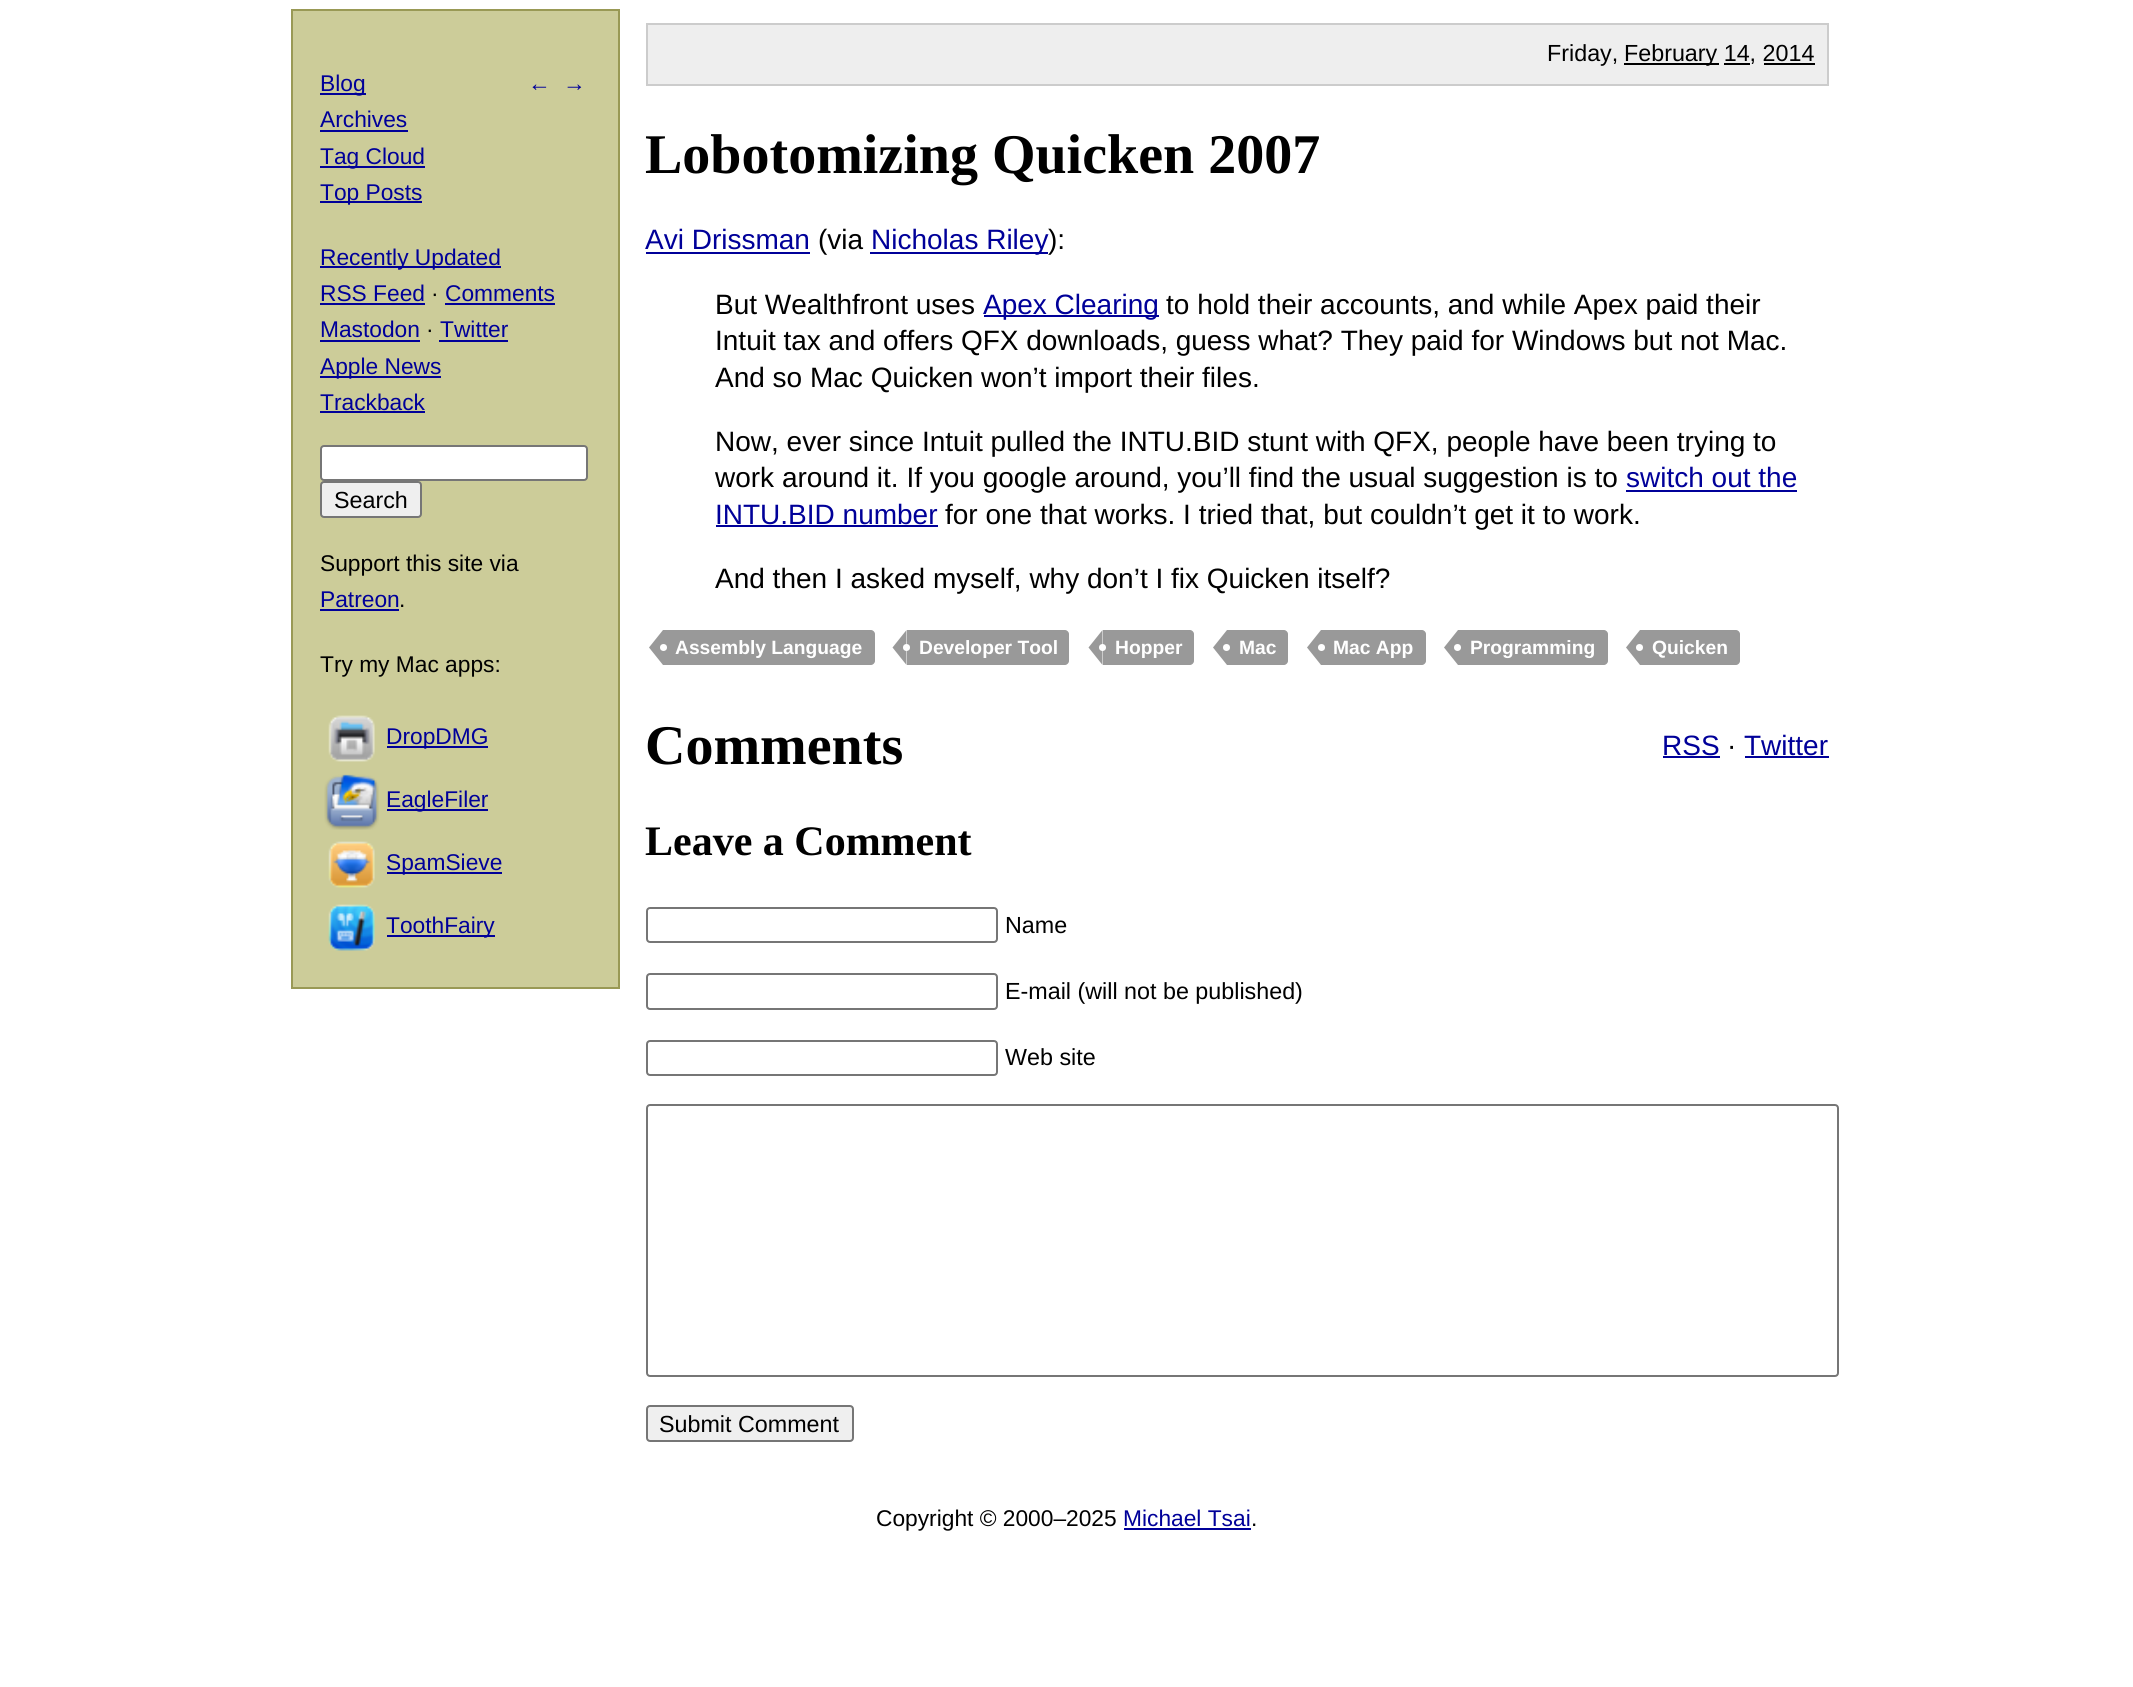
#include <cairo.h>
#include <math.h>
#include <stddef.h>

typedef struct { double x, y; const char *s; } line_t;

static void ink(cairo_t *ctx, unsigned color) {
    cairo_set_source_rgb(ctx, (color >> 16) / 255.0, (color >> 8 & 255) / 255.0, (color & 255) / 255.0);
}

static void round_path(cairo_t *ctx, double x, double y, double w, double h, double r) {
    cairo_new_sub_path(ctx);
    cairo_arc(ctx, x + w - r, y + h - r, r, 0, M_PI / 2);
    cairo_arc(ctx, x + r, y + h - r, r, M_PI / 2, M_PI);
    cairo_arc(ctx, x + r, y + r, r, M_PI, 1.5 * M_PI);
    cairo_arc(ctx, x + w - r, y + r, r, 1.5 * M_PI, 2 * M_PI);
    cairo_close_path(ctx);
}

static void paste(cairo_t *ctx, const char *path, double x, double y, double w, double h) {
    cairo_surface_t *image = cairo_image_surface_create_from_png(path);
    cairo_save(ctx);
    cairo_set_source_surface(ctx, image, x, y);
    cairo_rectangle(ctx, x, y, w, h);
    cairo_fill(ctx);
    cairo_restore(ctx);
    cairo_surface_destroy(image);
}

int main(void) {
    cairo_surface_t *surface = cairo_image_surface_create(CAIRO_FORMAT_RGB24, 2133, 1687);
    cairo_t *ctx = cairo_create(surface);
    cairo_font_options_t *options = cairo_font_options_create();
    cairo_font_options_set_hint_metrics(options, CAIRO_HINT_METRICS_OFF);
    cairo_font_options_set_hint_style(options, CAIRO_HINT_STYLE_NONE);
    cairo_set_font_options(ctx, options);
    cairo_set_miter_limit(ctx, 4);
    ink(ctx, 0xFFFFFF);
    cairo_paint(ctx);
    ink(ctx, 0xCCCC99);
    cairo_rectangle(ctx, 292, 10, 327, 978);
    cairo_fill_preserve(ctx);
    ink(ctx, 0x999955);
    cairo_stroke(ctx);
    ink(ctx, 0x000099);
    cairo_rectangle(ctx, 320, 93, 46, 2);
    cairo_fill(ctx);
    cairo_select_font_face(ctx, "Liberation Sans", CAIRO_FONT_SLANT_NORMAL, CAIRO_FONT_WEIGHT_NORMAL);
    cairo_set_font_size(ctx, 22.75);
    cairo_move_to(ctx, 320, 91);
    cairo_show_text(ctx, "Blog");
    cairo_move_to(ctx, 320, 127);
    cairo_show_text(ctx, "Archives");
    cairo_rectangle(ctx, 320, 130, 88, 2);
    cairo_fill(ctx);
    cairo_rectangle(ctx, 320, 166, 105, 2);
    cairo_fill(ctx);
    cairo_move_to(ctx, 320, 164);
    cairo_show_text(ctx, "Tag Cloud");
    cairo_rectangle(ctx, 320, 201, 102, 2);
    cairo_fill(ctx);
    cairo_move_to(ctx, 320, 200);
    cairo_show_text(ctx, "Top Posts");
    cairo_rectangle(ctx, 320, 266, 181, 2);
    cairo_fill(ctx);
    cairo_move_to(ctx, 320, 265);
    cairo_show_text(ctx, "Recently Updated");
    cairo_move_to(ctx, 320, 301);
    cairo_show_text(ctx, "RSS Feed");
    cairo_rectangle(ctx, 320, 303, 105, 2);
    cairo_fill(ctx);
    ink(ctx, 0x000000);
    cairo_move_to(ctx, 431, 301);
    cairo_show_text(ctx, "·");
    ink(ctx, 0x000099);
    cairo_move_to(ctx, 445, 301);
    cairo_show_text(ctx, "Comments");
    cairo_rectangle(ctx, 445, 303, 110, 2);
    cairo_fill(ctx);
    cairo_move_to(ctx, 320, 337);
    cairo_show_text(ctx, "Mastodon");
    cairo_rectangle(ctx, 320, 340, 100, 2);
    cairo_fill(ctx);
    ink(ctx, 0x000000);
    cairo_move_to(ctx, 426, 337);
    cairo_show_text(ctx, "·");
    ink(ctx, 0x000099);
    cairo_move_to(ctx, 440, 337);
    cairo_show_text(ctx, "Twitter");
    cairo_rectangle(ctx, 439, 340, 69, 2);
    cairo_fill(ctx);
    cairo_rectangle(ctx, 320, 376, 121, 2);
    cairo_fill(ctx);
    cairo_move_to(ctx, 320, 374);
    cairo_show_text(ctx, "Apple News");
    cairo_move_to(ctx, 320, 410);
    cairo_show_text(ctx, "Trackback");
    cairo_rectangle(ctx, 320, 411, 105, 2);
    cairo_fill(ctx);
    cairo_move_to(ctx, 528, 91);
    cairo_show_text(ctx, "←");
    cairo_move_to(ctx, 563, 91);
    cairo_show_text(ctx, "→");
    ink(ctx, 0xFFFFFF);
    round_path(ctx, 321, 446, 266, 34, 3);
    cairo_fill_preserve(ctx);
    ink(ctx, 0x767676);
    cairo_stroke(ctx);
    ink(ctx, 0xEFEFEF);
    round_path(ctx, 321, 482, 100, 35, 3);
    cairo_fill_preserve(ctx);
    ink(ctx, 0x767676);
    cairo_stroke(ctx);
    cairo_set_font_size(ctx, 23.3);
    ink(ctx, 0x000000);
    cairo_move_to(ctx, 334, 508);
    cairo_show_text(ctx, "Search");
    cairo_set_font_size(ctx, 22.75);
    cairo_move_to(ctx, 320, 571);
    cairo_show_text(ctx, "Support this site via");
    ink(ctx, 0x000099);
    cairo_move_to(ctx, 320, 607);
    cairo_show_text(ctx, "Patreon");
    cairo_rectangle(ctx, 320, 609, 79, 2);
    cairo_fill(ctx);
    ink(ctx, 0x000000);
    cairo_move_to(ctx, 399, 607);
    cairo_show_text(ctx, ".");
    cairo_move_to(ctx, 320, 672);
    cairo_show_text(ctx, "Try my Mac apps:");
    paste(ctx, "media/1.png", 328, 715, 47, 47);
    ink(ctx, 0x000099);
    cairo_rectangle(ctx, 387, 746, 101, 2);
    cairo_fill(ctx);
    cairo_move_to(ctx, 386, 744);
    cairo_show_text(ctx, "DropDMG");
    paste(ctx, "media/2.png", 324, 774, 55, 56);
    cairo_rectangle(ctx, 387, 809, 101, 2);
    cairo_fill(ctx);
    cairo_move_to(ctx, 386, 807);
    cairo_show_text(ctx, "EagleFiler");
    paste(ctx, "media/3.png", 328, 841, 47, 47);
    cairo_rectangle(ctx, 387, 872, 115, 2);
    cairo_fill(ctx);
    cairo_move_to(ctx, 386, 870);
    cairo_show_text(ctx, "SpamSieve");
    paste(ctx, "media/4.png", 328, 904, 47, 47);
    cairo_rectangle(ctx, 387, 935, 108, 2);
    cairo_fill(ctx);
    cairo_move_to(ctx, 386, 933);
    cairo_show_text(ctx, "ToothFairy");
    ink(ctx, 0xEEEEEE);
    cairo_rectangle(ctx, 647, 24, 1181, 61);
    cairo_fill_preserve(ctx);
    ink(ctx, 0xCCCCCC);
    cairo_stroke(ctx);
    cairo_set_font_size(ctx, 23.3);
    ink(ctx, 0x000000);
    cairo_move_to(ctx, 1547, 61);
    cairo_show_text(ctx, "Friday,");
    cairo_rectangle(ctx, 1624, 63, 95, 2);
    cairo_fill(ctx);
    cairo_move_to(ctx, 1624, 61);
    cairo_show_text(ctx, "February 14, 2014");
    cairo_rectangle(ctx, 1724, 63, 26, 2);
    cairo_fill(ctx);
    cairo_rectangle(ctx, 1764, 63, 51, 2);
    cairo_fill(ctx);
    cairo_select_font_face(ctx, "Liberation Serif", CAIRO_FONT_SLANT_NORMAL, CAIRO_FONT_WEIGHT_BOLD);
    cairo_set_font_size(ctx, 56);
    cairo_move_to(ctx, 645, 173);
    cairo_show_text(ctx, "Lobotomizing Quicken 2007");
    cairo_select_font_face(ctx, "Liberation Sans", CAIRO_FONT_SLANT_NORMAL, CAIRO_FONT_WEIGHT_NORMAL);
    cairo_set_font_size(ctx, 28);
    ink(ctx, 0x000099);
    cairo_move_to(ctx, 645, 249);
    cairo_show_text(ctx, "Avi Drissman");
    cairo_rectangle(ctx, 646, 252, 164, 2);
    cairo_fill(ctx);
    ink(ctx, 0x000000);
    cairo_move_to(ctx, 818, 249);
    cairo_show_text(ctx, "(via");
    ink(ctx, 0x000099);
    cairo_rectangle(ctx, 870, 252, 178, 2);
    cairo_fill(ctx);
    cairo_move_to(ctx, 871, 249);
    cairo_show_text(ctx, "Nicholas Riley");
    ink(ctx, 0x000000);
    cairo_move_to(ctx, 1048, 249);
    cairo_show_text(ctx, "):");
    cairo_move_to(ctx, 715, 314);
    cairo_show_text(ctx, "But Wealthfront uses");
    ink(ctx, 0x000099);
    cairo_rectangle(ctx, 984, 315, 175, 2);
    cairo_fill(ctx);
    cairo_move_to(ctx, 983, 314);
    cairo_show_text(ctx, "Apex Clearing");
    ink(ctx, 0x000000);
    {
        static const line_t items[] = {
            {1166, 314, "to hold their accounts, and while Apex paid their"},
            {715, 350, "Intuit tax and offers QFX downloads, guess what? They paid for Windows but not Mac."},
            {715, 387, "And so Mac Quicken won’t import their files."},
            {715, 451, "Now, ever since Intuit pulled the INTU.BID stunt with QFX, people have been trying to"},
            {715, 487, "work around it. If you google around, you’ll find the usual suggestion is to"},
        };
        for (size_t i = 0; i < sizeof items / sizeof *items; i++) {
            cairo_move_to(ctx, items[i].x, items[i].y);
            cairo_show_text(ctx, items[i].s);
        }
    }
    ink(ctx, 0x000099);
    cairo_move_to(ctx, 1626, 487);
    cairo_show_text(ctx, "switch out the");
    cairo_rectangle(ctx, 1626, 490, 171, 2);
    cairo_fill(ctx);
    cairo_move_to(ctx, 715, 524);
    cairo_show_text(ctx, "INTU.BID number");
    cairo_rectangle(ctx, 716, 525, 222, 2);
    cairo_fill(ctx);
    ink(ctx, 0x000000);
    cairo_move_to(ctx, 945, 524);
    cairo_show_text(ctx, "for one that works. I tried that, but couldn’t get it to work.");
    cairo_move_to(ctx, 715, 588);
    cairo_show_text(ctx, "And then I asked myself, why don’t I fix Quicken itself?");
    ink(ctx, 0x999999);
    cairo_new_path(ctx);
    cairo_move_to(ctx, 663, 630);
    cairo_line_to(ctx, 871, 630);
    cairo_curve_to(ctx, 873, 630, 875, 632, 875, 634);
    cairo_line_to(ctx, 875, 661);
    cairo_curve_to(ctx, 875, 663, 873, 665, 871, 665);
    cairo_line_to(ctx, 663, 665);
    cairo_close_path(ctx);
    cairo_fill(ctx);
    cairo_new_path(ctx);
    cairo_move_to(ctx, 663, 630);
    cairo_line_to(ctx, 663, 665);
    cairo_line_to(ctx, 649, 647.5);
    cairo_close_path(ctx);
    cairo_fill(ctx);
    ink(ctx, 0xFFFFFF);
    cairo_arc(ctx, 663.5, 647.5, 3.5, 0, 2 * M_PI);
    cairo_fill(ctx);
    cairo_select_font_face(ctx, "Liberation Sans", CAIRO_FONT_SLANT_NORMAL, CAIRO_FONT_WEIGHT_BOLD);
    cairo_set_font_size(ctx, 19.25);
    cairo_move_to(ctx, 675, 654);
    cairo_show_text(ctx, "Assembly Language");
    ink(ctx, 0x999999);
    cairo_new_path(ctx);
    cairo_move_to(ctx, 907, 630);
    cairo_line_to(ctx, 1065, 630);
    cairo_curve_to(ctx, 1067, 630, 1069, 632, 1069, 634);
    cairo_line_to(ctx, 1069, 661);
    cairo_curve_to(ctx, 1069, 663, 1067, 665, 1065, 665);
    cairo_line_to(ctx, 907, 665);
    cairo_close_path(ctx);
    cairo_fill(ctx);
    cairo_new_path(ctx);
    cairo_move_to(ctx, 906.5, 630);
    cairo_line_to(ctx, 906.5, 665);
    cairo_line_to(ctx, 892.5, 647.5);
    cairo_close_path(ctx);
    cairo_fill(ctx);
    ink(ctx, 0xFFFFFF);
    cairo_move_to(ctx, 919, 654);
    cairo_show_text(ctx, "Developer Tool");
    cairo_new_path(ctx);
    cairo_arc(ctx, 906.5, 647.5, 3.5, 0, 2 * M_PI);
    cairo_fill(ctx);
    ink(ctx, 0x999999);
    cairo_new_path(ctx);
    cairo_move_to(ctx, 1103, 630);
    cairo_line_to(ctx, 1190, 630);
    cairo_curve_to(ctx, 1192, 630, 1194, 632, 1194, 634);
    cairo_line_to(ctx, 1194, 661);
    cairo_curve_to(ctx, 1194, 663, 1192, 665, 1190, 665);
    cairo_line_to(ctx, 1103, 665);
    cairo_close_path(ctx);
    cairo_fill(ctx);
    cairo_new_path(ctx);
    cairo_move_to(ctx, 1102.5, 630);
    cairo_line_to(ctx, 1102.5, 665);
    cairo_line_to(ctx, 1088.5, 647.5);
    cairo_close_path(ctx);
    cairo_fill(ctx);
    ink(ctx, 0xFFFFFF);
    cairo_move_to(ctx, 1115, 654);
    cairo_show_text(ctx, "Hopper");
    cairo_new_path(ctx);
    cairo_arc(ctx, 1102.5, 647.5, 3.5, 0, 2 * M_PI);
    cairo_fill(ctx);
    ink(ctx, 0x999999);
    cairo_new_path(ctx);
    cairo_move_to(ctx, 1227, 630);
    cairo_line_to(ctx, 1284, 630);
    cairo_curve_to(ctx, 1286, 630, 1288, 632, 1288, 634);
    cairo_line_to(ctx, 1288, 661);
    cairo_curve_to(ctx, 1288, 663, 1286, 665, 1284, 665);
    cairo_line_to(ctx, 1227, 665);
    cairo_close_path(ctx);
    cairo_fill(ctx);
    cairo_new_path(ctx);
    cairo_move_to(ctx, 1227, 630);
    cairo_line_to(ctx, 1227, 665);
    cairo_line_to(ctx, 1213, 647.5);
    cairo_close_path(ctx);
    cairo_fill(ctx);
    ink(ctx, 0xFFFFFF);
    cairo_move_to(ctx, 1239, 654);
    cairo_show_text(ctx, "Mac");
    cairo_new_path(ctx);
    cairo_arc(ctx, 1226.5, 647.5, 3.5, 0, 2 * M_PI);
    cairo_fill(ctx);
    ink(ctx, 0x999999);
    cairo_new_path(ctx);
    cairo_move_to(ctx, 1321, 630);
    cairo_line_to(ctx, 1422, 630);
    cairo_curve_to(ctx, 1424, 630, 1426, 632, 1426, 634);
    cairo_line_to(ctx, 1426, 661);
    cairo_curve_to(ctx, 1426, 663, 1424, 665, 1422, 665);
    cairo_line_to(ctx, 1321, 665);
    cairo_close_path(ctx);
    cairo_fill(ctx);
    cairo_new_path(ctx);
    cairo_move_to(ctx, 1321, 630);
    cairo_line_to(ctx, 1321, 665);
    cairo_line_to(ctx, 1307, 647.5);
    cairo_close_path(ctx);
    cairo_fill(ctx);
    ink(ctx, 0xFFFFFF);
    cairo_arc(ctx, 1321.5, 647.5, 3.5, 0, 2 * M_PI);
    cairo_fill(ctx);
    cairo_move_to(ctx, 1333, 654);
    cairo_show_text(ctx, "Mac App");
    ink(ctx, 0x999999);
    cairo_new_path(ctx);
    cairo_move_to(ctx, 1458, 630);
    cairo_line_to(ctx, 1604, 630);
    cairo_curve_to(ctx, 1606, 630, 1608, 632, 1608, 634);
    cairo_line_to(ctx, 1608, 661);
    cairo_curve_to(ctx, 1608, 663, 1606, 665, 1604, 665);
    cairo_line_to(ctx, 1458, 665);
    cairo_close_path(ctx);
    cairo_fill(ctx);
    cairo_new_path(ctx);
    cairo_move_to(ctx, 1458, 630);
    cairo_line_to(ctx, 1458, 665);
    cairo_line_to(ctx, 1444, 647.5);
    cairo_close_path(ctx);
    cairo_fill(ctx);
    ink(ctx, 0xFFFFFF);
    cairo_move_to(ctx, 1470, 654);
    cairo_show_text(ctx, "Programming");
    cairo_new_path(ctx);
    cairo_arc(ctx, 1457.5, 647.5, 3.5, 0, 2 * M_PI);
    cairo_fill(ctx);
    ink(ctx, 0x999999);
    cairo_new_path(ctx);
    cairo_move_to(ctx, 1640, 630);
    cairo_line_to(ctx, 1736, 630);
    cairo_curve_to(ctx, 1738, 630, 1740, 632, 1740, 634);
    cairo_line_to(ctx, 1740, 661);
    cairo_curve_to(ctx, 1740, 663, 1738, 665, 1736, 665);
    cairo_line_to(ctx, 1640, 665);
    cairo_close_path(ctx);
    cairo_fill(ctx);
    cairo_new_path(ctx);
    cairo_move_to(ctx, 1640, 630);
    cairo_line_to(ctx, 1640, 665);
    cairo_line_to(ctx, 1626, 647.5);
    cairo_close_path(ctx);
    cairo_fill(ctx);
    ink(ctx, 0xFFFFFF);
    cairo_move_to(ctx, 1652, 654);
    cairo_show_text(ctx, "Quicken");
    cairo_new_path(ctx);
    cairo_arc(ctx, 1639.5, 647.5, 3.5, 0, 2 * M_PI);
    cairo_fill(ctx);
    cairo_select_font_face(ctx, "Liberation Serif", CAIRO_FONT_SLANT_NORMAL, CAIRO_FONT_WEIGHT_BOLD);
    cairo_set_font_size(ctx, 56);
    ink(ctx, 0x000000);
    cairo_move_to(ctx, 645, 764);
    cairo_show_text(ctx, "Comments");
    cairo_select_font_face(ctx, "Liberation Sans", CAIRO_FONT_SLANT_NORMAL, CAIRO_FONT_WEIGHT_NORMAL);
    cairo_set_font_size(ctx, 28);
    ink(ctx, 0x000099);
    cairo_move_to(ctx, 1662, 755);
    cairo_show_text(ctx, "RSS");
    cairo_rectangle(ctx, 1663, 756, 57, 2);
    cairo_fill(ctx);
    ink(ctx, 0x000000);
    cairo_move_to(ctx, 1727, 755);
    cairo_show_text(ctx, "·");
    ink(ctx, 0x000099);
    cairo_move_to(ctx, 1744, 755);
    cairo_show_text(ctx, "Twitter");
    cairo_rectangle(ctx, 1745, 756, 84, 2);
    cairo_fill(ctx);
    cairo_select_font_face(ctx, "Liberation Serif", CAIRO_FONT_SLANT_NORMAL, CAIRO_FONT_WEIGHT_BOLD);
    cairo_set_font_size(ctx, 42);
    ink(ctx, 0x000000);
    cairo_move_to(ctx, 645, 855);
    cairo_show_text(ctx, "Leave a Comment");
    round_path(ctx, 647, 908, 350, 34, 3);
    ink(ctx, 0x767676);
    cairo_stroke(ctx);
    cairo_select_font_face(ctx, "Liberation Sans", CAIRO_FONT_SLANT_NORMAL, CAIRO_FONT_WEIGHT_NORMAL);
    cairo_set_font_size(ctx, 23.3);
    ink(ctx, 0x000000);
    cairo_move_to(ctx, 1005, 933);
    cairo_show_text(ctx, "Name");
    round_path(ctx, 647, 974, 350, 35, 3);
    ink(ctx, 0x767676);
    cairo_stroke(ctx);
    ink(ctx, 0x000000);
    cairo_move_to(ctx, 1005, 999);
    cairo_show_text(ctx, "E-mail (will not be published)");
    round_path(ctx, 647, 1041, 350, 34, 3);
    ink(ctx, 0x767676);
    cairo_stroke(ctx);
    ink(ctx, 0x000000);
    cairo_move_to(ctx, 1005, 1065);
    cairo_show_text(ctx, "Web site");
    round_path(ctx, 647, 1105, 1191, 271, 3);
    ink(ctx, 0x767676);
    cairo_stroke(ctx);
    ink(ctx, 0xEFEFEF);
    round_path(ctx, 647, 1406, 206, 35, 3);
    cairo_fill_preserve(ctx);
    ink(ctx, 0x767676);
    cairo_stroke(ctx);
    ink(ctx, 0x000000);
    cairo_move_to(ctx, 659, 1432);
    cairo_show_text(ctx, "Submit Comment");
    cairo_set_font_size(ctx, 22.75);
    cairo_move_to(ctx, 876, 1526);
    cairo_show_text(ctx, "Copyright © 2000–2025");
    ink(ctx, 0x000099);
    cairo_move_to(ctx, 1123, 1526);
    cairo_show_text(ctx, "Michael Tsai");
    cairo_rectangle(ctx, 1124, 1528, 127, 2);
    cairo_fill(ctx);
    ink(ctx, 0x000000);
    cairo_move_to(ctx, 1251, 1526);
    cairo_show_text(ctx, ".");
    cairo_surface_write_to_png(surface, "image.png");
    cairo_font_options_destroy(options);
    cairo_destroy(ctx);
    cairo_surface_destroy(surface);
    return 0;
}
